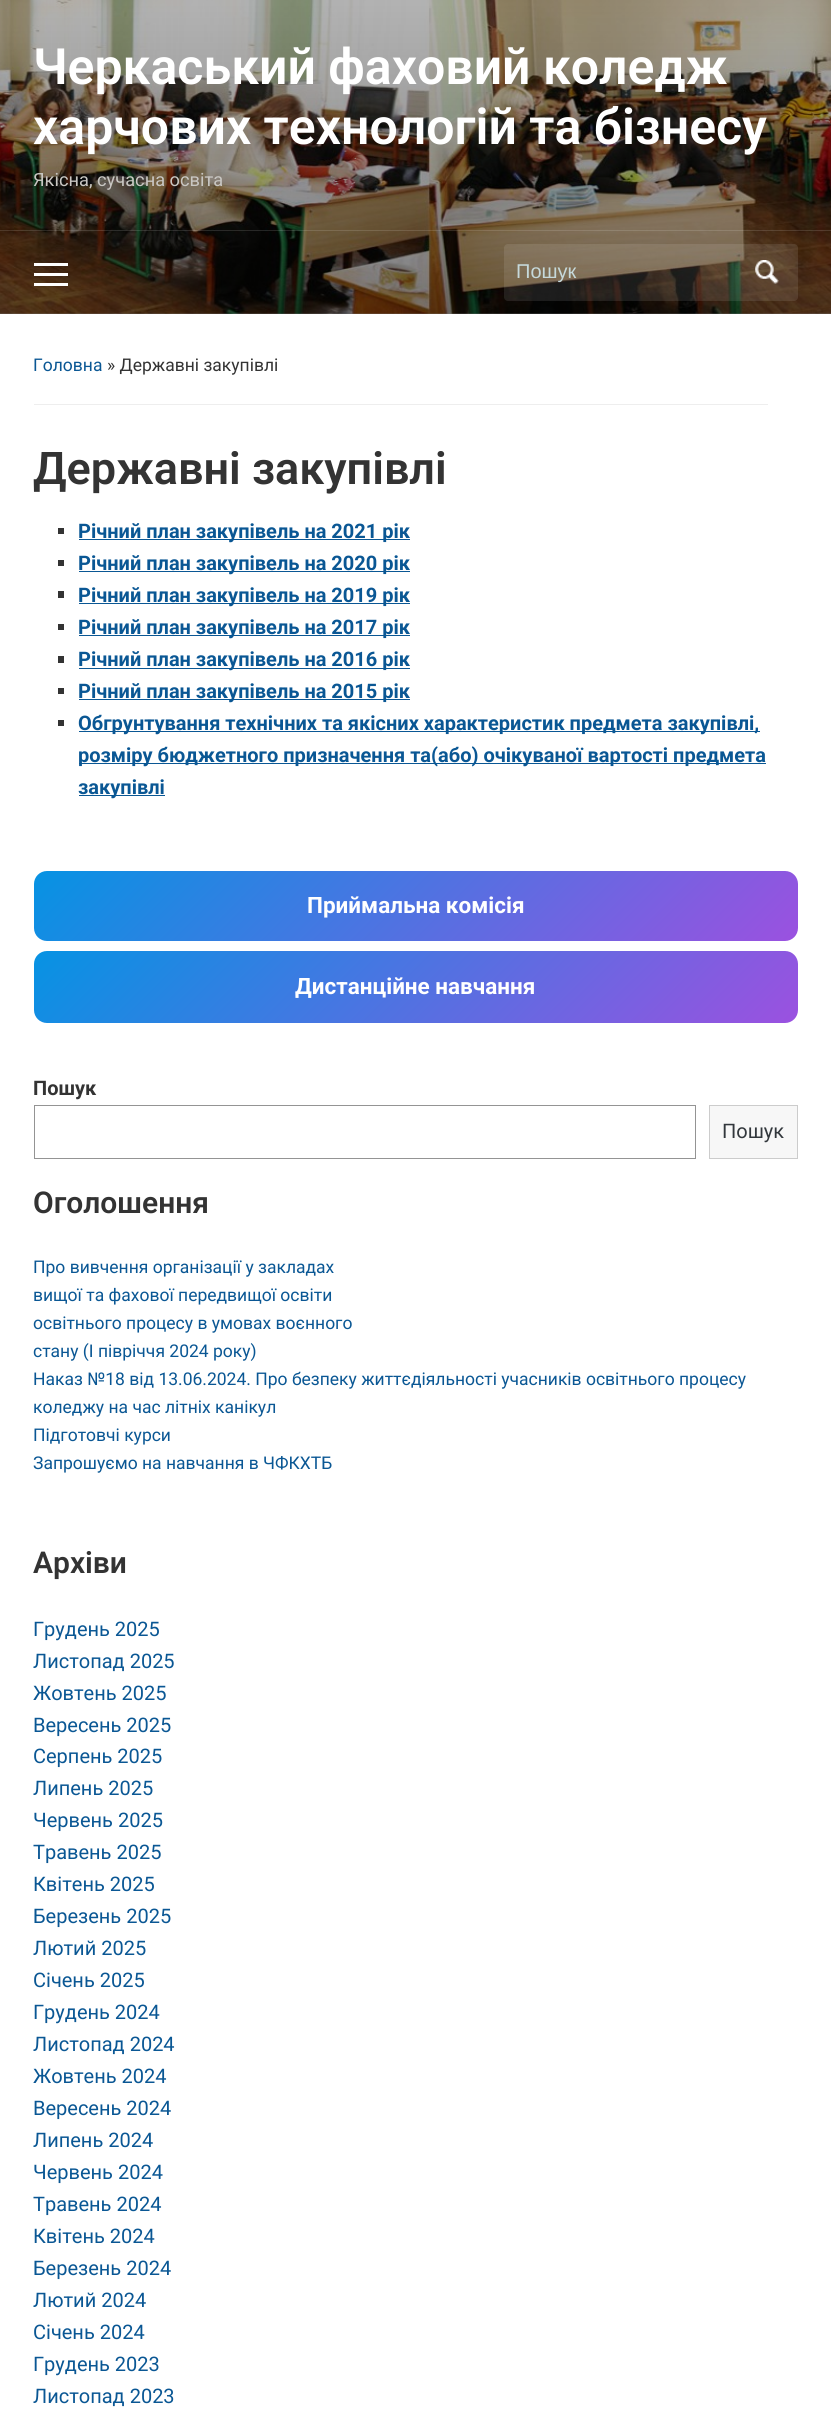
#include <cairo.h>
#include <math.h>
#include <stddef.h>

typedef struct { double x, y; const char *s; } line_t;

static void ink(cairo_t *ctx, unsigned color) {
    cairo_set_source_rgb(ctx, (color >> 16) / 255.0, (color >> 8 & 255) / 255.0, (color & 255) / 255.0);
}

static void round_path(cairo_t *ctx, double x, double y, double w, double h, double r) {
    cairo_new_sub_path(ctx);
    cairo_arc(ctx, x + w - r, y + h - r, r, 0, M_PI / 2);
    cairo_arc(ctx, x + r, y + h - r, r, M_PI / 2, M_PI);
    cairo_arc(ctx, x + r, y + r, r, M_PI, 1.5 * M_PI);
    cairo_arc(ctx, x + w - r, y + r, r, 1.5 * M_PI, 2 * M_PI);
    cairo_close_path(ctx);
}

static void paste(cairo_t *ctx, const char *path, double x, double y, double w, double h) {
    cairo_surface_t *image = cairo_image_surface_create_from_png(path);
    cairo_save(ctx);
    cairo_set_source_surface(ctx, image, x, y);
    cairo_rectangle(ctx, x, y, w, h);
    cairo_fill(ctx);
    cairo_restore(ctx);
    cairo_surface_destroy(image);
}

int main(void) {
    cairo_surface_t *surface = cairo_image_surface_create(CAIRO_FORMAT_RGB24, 831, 2425);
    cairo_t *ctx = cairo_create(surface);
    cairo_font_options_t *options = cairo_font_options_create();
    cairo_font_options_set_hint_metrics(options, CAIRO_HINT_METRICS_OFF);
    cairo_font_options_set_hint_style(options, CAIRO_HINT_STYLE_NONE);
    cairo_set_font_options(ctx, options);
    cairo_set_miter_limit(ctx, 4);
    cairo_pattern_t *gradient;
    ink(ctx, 0xFFFFFF);
    cairo_paint(ctx);
    paste(ctx, "media/1.png", 0, 0, 831, 314);
    gradient = cairo_pattern_create_linear(416, 0, 416, 314);
    cairo_pattern_add_color_stop_rgba(gradient, 0, 0, 0, 0, 0.3);
    cairo_pattern_add_color_stop_rgba(gradient, 1, 0, 0, 0, 0.5);
    cairo_set_source(ctx, gradient);
    cairo_pattern_destroy(gradient);
    cairo_rectangle(ctx, 0, 0, 831, 314);
    cairo_fill(ctx);
    cairo_select_font_face(ctx, "Roboto SemiBold", CAIRO_FONT_SLANT_NORMAL, CAIRO_FONT_WEIGHT_NORMAL);
    cairo_set_font_size(ctx, 50);
    ink(ctx, 0xFFFFFF);
    cairo_move_to(ctx, 33, 84);
    cairo_show_text(ctx, "Черкаський фаховий коледж");
    cairo_move_to(ctx, 33, 144);
    cairo_show_text(ctx, "харчових технологій та бізнесу");
    cairo_select_font_face(ctx, "Roboto", CAIRO_FONT_SLANT_NORMAL, CAIRO_FONT_WEIGHT_NORMAL);
    cairo_set_font_size(ctx, 18.25);
    ink(ctx, 0xC9C7C3);
    cairo_move_to(ctx, 33, 186);
    cairo_show_text(ctx, "Якісна, сучасна освіта");
    cairo_set_source_rgba(ctx, 1, 1, 1, 0.13);
    cairo_rectangle(ctx, 0, 230, 831, 1);
    cairo_fill(ctx);
    ink(ctx, 0xFFFFFF);
    cairo_rectangle(ctx, 34, 263, 34, 3);
    cairo_fill(ctx);
    cairo_rectangle(ctx, 34, 273, 34, 3);
    cairo_fill(ctx);
    cairo_rectangle(ctx, 34, 283, 34, 3);
    cairo_fill(ctx);
    cairo_set_source_rgba(ctx, 1, 1, 1, 0.1);
    round_path(ctx, 504, 244, 294, 57, 4);
    cairo_fill(ctx);
    cairo_select_font_face(ctx, "Liberation Sans", CAIRO_FONT_SLANT_NORMAL, CAIRO_FONT_WEIGHT_NORMAL);
    cairo_set_font_size(ctx, 20);
    ink(ctx, 0xC6D9DB);
    cairo_move_to(ctx, 516, 278);
    cairo_show_text(ctx, "Пошук");
    paste(ctx, "media/2.png", 755, 260, 24, 24);
    ink(ctx, 0xEEEEEE);
    cairo_rectangle(ctx, 34, 404, 734, 1);
    cairo_fill(ctx);
    cairo_select_font_face(ctx, "Roboto", CAIRO_FONT_SLANT_NORMAL, CAIRO_FONT_WEIGHT_NORMAL);
    cairo_set_font_size(ctx, 17.5);
    ink(ctx, 0x0A5794);
    cairo_move_to(ctx, 33, 371);
    cairo_show_text(ctx, "Головна");
    ink(ctx, 0x333333);
    cairo_move_to(ctx, 107, 371);
    cairo_show_text(ctx, "» Державні закупівлі");
    cairo_select_font_face(ctx, "Roboto SemiBold", CAIRO_FONT_SLANT_NORMAL, CAIRO_FONT_WEIGHT_NORMAL);
    cairo_set_font_size(ctx, 45);
    cairo_move_to(ctx, 33, 484);
    cairo_show_text(ctx, "Державні закупівлі");
    cairo_rectangle(ctx, 58, 528, 6, 6);
    cairo_fill(ctx);
    ink(ctx, 0x0A5794);
    cairo_rectangle(ctx, 79, 539, 331, 1);
    cairo_fill(ctx);
    cairo_select_font_face(ctx, "Roboto", CAIRO_FONT_SLANT_NORMAL, CAIRO_FONT_WEIGHT_BOLD);
    cairo_set_font_size(ctx, 20);
    cairo_move_to(ctx, 78, 538);
    cairo_show_text(ctx, "Річний план закупівель на 2021 рік");
    ink(ctx, 0x333333);
    cairo_rectangle(ctx, 58, 560, 6, 6);
    cairo_fill(ctx);
    ink(ctx, 0x0A5794);
    cairo_rectangle(ctx, 79, 571, 331, 1);
    cairo_fill(ctx);
    cairo_move_to(ctx, 78, 570);
    cairo_show_text(ctx, "Річний план закупівель на 2020 рік");
    ink(ctx, 0x333333);
    cairo_rectangle(ctx, 58, 591, 6, 7);
    cairo_fill(ctx);
    ink(ctx, 0x0A5794);
    cairo_rectangle(ctx, 79, 603, 331, 1);
    cairo_fill(ctx);
    cairo_move_to(ctx, 78, 602);
    cairo_show_text(ctx, "Річний план закупівель на 2019 рік");
    ink(ctx, 0x333333);
    cairo_rectangle(ctx, 58, 624, 6, 6);
    cairo_fill(ctx);
    ink(ctx, 0x0A5794);
    cairo_rectangle(ctx, 79, 635, 331, 1);
    cairo_fill(ctx);
    cairo_move_to(ctx, 78, 634);
    cairo_show_text(ctx, "Річний план закупівель на 2017 рік");
    ink(ctx, 0x333333);
    cairo_rectangle(ctx, 58, 656, 6, 7);
    cairo_fill(ctx);
    ink(ctx, 0x0A5794);
    cairo_rectangle(ctx, 79, 668, 331, 1);
    cairo_fill(ctx);
    cairo_move_to(ctx, 78, 666);
    cairo_show_text(ctx, "Річний план закупівель на 2016 рік");
    ink(ctx, 0x333333);
    cairo_rectangle(ctx, 58, 688, 6, 6);
    cairo_fill(ctx);
    ink(ctx, 0x0A5794);
    cairo_rectangle(ctx, 79, 699, 331, 1);
    cairo_fill(ctx);
    cairo_move_to(ctx, 78, 698);
    cairo_show_text(ctx, "Річний план закупівель на 2015 рік");
    ink(ctx, 0x333333);
    cairo_rectangle(ctx, 58, 720, 6, 6);
    cairo_fill(ctx);
    ink(ctx, 0x0A5794);
    cairo_rectangle(ctx, 79, 731, 681, 1);
    cairo_fill(ctx);
    cairo_move_to(ctx, 78, 730);
    cairo_show_text(ctx, "Обгрунтування технічних та якісних характеристик предмета закупівлі,");
    cairo_rectangle(ctx, 79, 763, 687, 1);
    cairo_fill(ctx);
    cairo_move_to(ctx, 78, 762);
    cairo_show_text(ctx, "розміру бюджетного призначення та(або) очікуваної вартості предмета");
    cairo_rectangle(ctx, 79, 795, 86, 1);
    cairo_fill(ctx);
    cairo_move_to(ctx, 78, 794);
    cairo_show_text(ctx, "закупівлі");
    gradient = cairo_pattern_create_linear(207, 698, 624, 1115);
    cairo_pattern_add_color_stop_rgba(gradient, 0, 0.024, 0.576, 0.89, 1);
    cairo_pattern_add_color_stop_rgba(gradient, 1, 0.608, 0.318, 0.878, 1);
    cairo_set_source(ctx, gradient);
    cairo_pattern_destroy(gradient);
    round_path(ctx, 34, 871, 764, 70, 13);
    cairo_fill(ctx);
    cairo_set_font_size(ctx, 22.5);
    ink(ctx, 0xFFFFFF);
    cairo_move_to(ctx, 307, 913);
    cairo_show_text(ctx, "Приймальна комісія");
    gradient = cairo_pattern_create_linear(207, 778, 624, 1196);
    cairo_pattern_add_color_stop_rgba(gradient, 0, 0.024, 0.576, 0.89, 1);
    cairo_pattern_add_color_stop_rgba(gradient, 1, 0.608, 0.318, 0.878, 1);
    cairo_set_source(ctx, gradient);
    cairo_pattern_destroy(gradient);
    round_path(ctx, 34, 951, 764, 72, 13);
    cairo_fill(ctx);
    ink(ctx, 0xFFFFFF);
    cairo_move_to(ctx, 295, 994);
    cairo_show_text(ctx, "Дистанційне навчання");
    cairo_set_font_size(ctx, 20);
    ink(ctx, 0x333333);
    cairo_move_to(ctx, 33, 1095);
    cairo_show_text(ctx, "Пошук");
    cairo_rectangle(ctx, 34.5, 1105.5, 661, 53);
    ink(ctx, 0x949494);
    cairo_set_line_width(ctx, 1);
    cairo_stroke(ctx);
    ink(ctx, 0xF7F7F7);
    cairo_rectangle(ctx, 709.5, 1105.5, 88, 53);
    cairo_fill_preserve(ctx);
    ink(ctx, 0xCCCCCC);
    cairo_stroke(ctx);
    cairo_select_font_face(ctx, "Roboto", CAIRO_FONT_SLANT_NORMAL, CAIRO_FONT_WEIGHT_NORMAL);
    ink(ctx, 0x32373C);
    cairo_move_to(ctx, 722, 1138);
    cairo_show_text(ctx, "Пошук");
    cairo_select_font_face(ctx, "Roboto SemiBold", CAIRO_FONT_SLANT_NORMAL, CAIRO_FONT_WEIGHT_NORMAL);
    cairo_set_font_size(ctx, 30);
    ink(ctx, 0x333333);
    cairo_move_to(ctx, 33, 1213);
    cairo_show_text(ctx, "Оголошення");
    cairo_select_font_face(ctx, "Roboto", CAIRO_FONT_SLANT_NORMAL, CAIRO_FONT_WEIGHT_NORMAL);
    cairo_set_font_size(ctx, 17.5);
    ink(ctx, 0x0A5794);
    {
        static const line_t items[] = {
            {33, 1273, "Про вивчення організації у закладах"},
            {33, 1301, "вищої та фахової передвищої освіти"},
            {33, 1329, "освітнього процесу в умовах воєнного"},
            {33, 1357, "стану (І півріччя 2024 року)"},
            {33, 1385, "Наказ №18 від 13.06.2024. Про безпеку життєдіяльності учасників освітнього процесу"},
            {33, 1413, "коледжу на час літніх канікул"},
            {33, 1441, "Підготовчі курси"},
            {33, 1469, "Запрошуємо на навчання в ЧФКХТБ"},
        };
        for (size_t i = 0; i < sizeof items / sizeof *items; i++) {
            cairo_move_to(ctx, items[i].x, items[i].y);
            cairo_show_text(ctx, items[i].s);
        }
    }
    cairo_select_font_face(ctx, "Roboto SemiBold", CAIRO_FONT_SLANT_NORMAL, CAIRO_FONT_WEIGHT_NORMAL);
    cairo_set_font_size(ctx, 30);
    ink(ctx, 0x333333);
    cairo_move_to(ctx, 33, 1573);
    cairo_show_text(ctx, "Архіви");
    cairo_select_font_face(ctx, "Roboto", CAIRO_FONT_SLANT_NORMAL, CAIRO_FONT_WEIGHT_NORMAL);
    cairo_set_font_size(ctx, 20);
    ink(ctx, 0x0A5794);
    {
        static const line_t items[] = {
            {33, 1636, "Грудень 2025"},
            {33, 1668, "Листопад 2025"},
            {33, 1700, "Жовтень 2025"},
            {33, 1732, "Вересень 2025"},
            {33, 1763, "Серпень 2025"},
            {33, 1795, "Липень 2025"},
            {33, 1827, "Червень 2025"},
            {33, 1859, "Травень 2025"},
            {33, 1891, "Квітень 2025"},
            {33, 1923, "Березень 2025"},
            {33, 1955, "Лютий 2025"},
            {33, 1987, "Січень 2025"},
            {33, 2019, "Грудень 2024"},
            {33, 2051, "Листопад 2024"},
            {33, 2083, "Жовтень 2024"},
            {33, 2115, "Вересень 2024"},
            {33, 2147, "Липень 2024"},
            {33, 2179, "Червень 2024"},
            {33, 2211, "Травень 2024"},
            {33, 2243, "Квітень 2024"},
            {33, 2275, "Березень 2024"},
            {33, 2307, "Лютий 2024"},
            {33, 2339, "Січень 2024"},
            {33, 2371, "Грудень 2023"},
            {33, 2403, "Листопад 2023"},
        };
        for (size_t i = 0; i < sizeof items / sizeof *items; i++) {
            cairo_move_to(ctx, items[i].x, items[i].y);
            cairo_show_text(ctx, items[i].s);
        }
    }
    cairo_surface_write_to_png(surface, "image.png");
    cairo_font_options_destroy(options);
    cairo_destroy(ctx);
    cairo_surface_destroy(surface);
    return 0;
}
